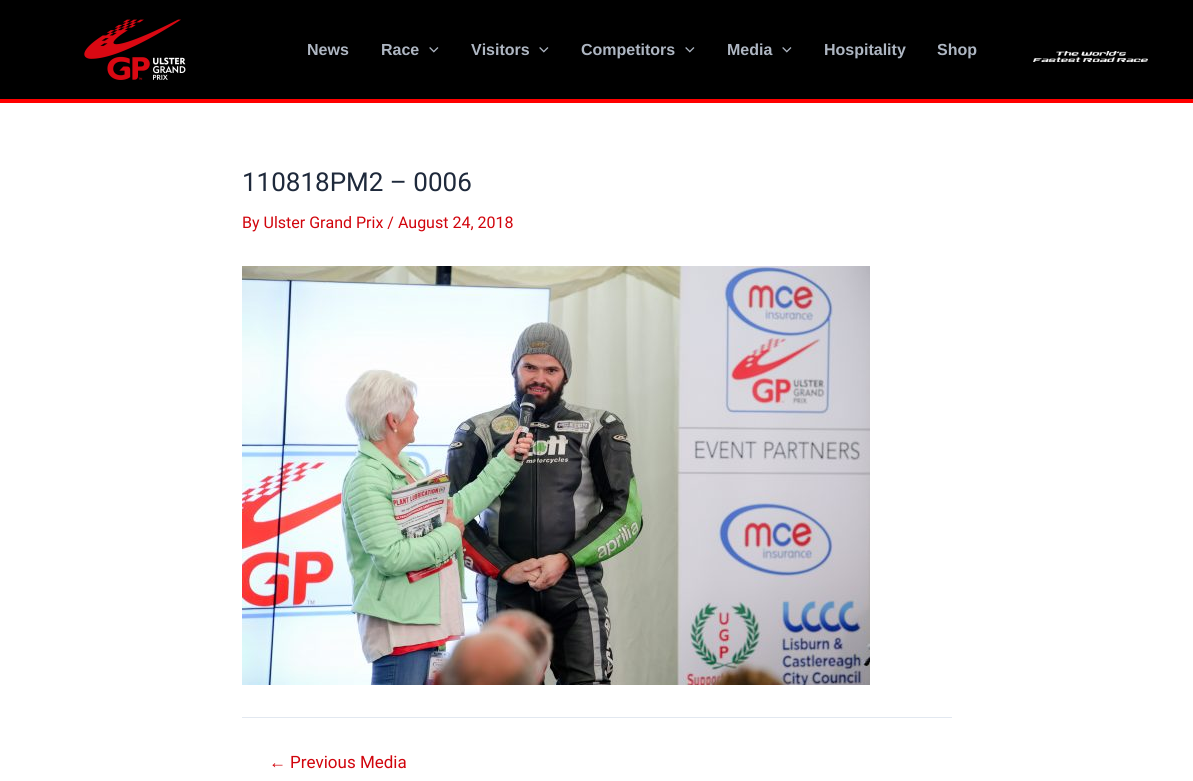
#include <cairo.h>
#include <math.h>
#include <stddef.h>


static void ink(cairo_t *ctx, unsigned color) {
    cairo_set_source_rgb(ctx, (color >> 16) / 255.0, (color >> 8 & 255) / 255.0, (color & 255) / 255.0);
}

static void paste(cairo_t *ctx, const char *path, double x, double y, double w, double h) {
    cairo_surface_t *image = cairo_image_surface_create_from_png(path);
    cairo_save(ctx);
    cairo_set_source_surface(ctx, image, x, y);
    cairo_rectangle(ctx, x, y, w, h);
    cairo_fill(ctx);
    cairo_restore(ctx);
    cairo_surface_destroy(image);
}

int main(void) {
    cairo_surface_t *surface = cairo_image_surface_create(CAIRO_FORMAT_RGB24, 1193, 781);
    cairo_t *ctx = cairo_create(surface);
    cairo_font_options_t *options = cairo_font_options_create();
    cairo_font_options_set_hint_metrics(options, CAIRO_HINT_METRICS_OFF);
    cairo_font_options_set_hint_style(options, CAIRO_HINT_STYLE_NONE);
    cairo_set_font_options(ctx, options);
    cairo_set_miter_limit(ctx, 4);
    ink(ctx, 0xFFFFFF);
    cairo_paint(ctx);
    ink(ctx, 0x000000);
    cairo_rectangle(ctx, 0, 0, 1193, 99);
    cairo_fill(ctx);
    ink(ctx, 0xFF0000);
    cairo_rectangle(ctx, 0, 99, 1193, 4);
    cairo_fill(ctx);
    paste(ctx, "media/1.png", 84, 19, 102, 61);
    cairo_select_font_face(ctx, "Liberation Sans", CAIRO_FONT_SLANT_NORMAL, CAIRO_FONT_WEIGHT_BOLD);
    cairo_set_font_size(ctx, 16);
    ink(ctx, 0xAEB6C2);
    cairo_move_to(ctx, 307, 55);
    cairo_show_text(ctx, "News");
    cairo_move_to(ctx, 381, 55);
    cairo_show_text(ctx, "Race");
    paste(ctx, "media/2.png", 429, 47, 10, 6);
    cairo_move_to(ctx, 471, 55);
    cairo_show_text(ctx, "Visitors");
    paste(ctx, "media/2.png", 539, 47, 10, 6);
    cairo_move_to(ctx, 581, 55);
    cairo_show_text(ctx, "Competitors");
    paste(ctx, "media/2.png", 685, 47, 10, 6);
    cairo_move_to(ctx, 727, 55);
    cairo_show_text(ctx, "Media");
    paste(ctx, "media/2.png", 782, 47, 10, 6);
    cairo_move_to(ctx, 824, 55);
    cairo_show_text(ctx, "Hospitality");
    cairo_move_to(ctx, 937, 55);
    cairo_show_text(ctx, "Shop");
    paste(ctx, "media/3.png", 1033, 51, 115, 11);
    cairo_select_font_face(ctx, "Roboto", CAIRO_FONT_SLANT_NORMAL, CAIRO_FONT_WEIGHT_NORMAL);
    cairo_set_font_size(ctx, 26);
    ink(ctx, 0x1E293B);
    cairo_move_to(ctx, 242, 191);
    cairo_show_text(ctx, "110818PM2 – 0006");
    cairo_set_font_size(ctx, 16);
    ink(ctx, 0xD1040C);
    cairo_move_to(ctx, 242, 228);
    cairo_show_text(ctx, "By Ulster Grand Prix / August 24, 2018");
    paste(ctx, "media/4.png", 242, 266, 628, 419);
    ink(ctx, 0xE2E8F0);
    cairo_rectangle(ctx, 242, 717, 710, 1);
    cairo_fill(ctx);
    cairo_select_font_face(ctx, "Liberation Sans", CAIRO_FONT_SLANT_NORMAL, CAIRO_FONT_WEIGHT_NORMAL);
    cairo_set_font_size(ctx, 17);
    ink(ctx, 0xD1040C);
    cairo_move_to(ctx, 269, 768);
    cairo_show_text(ctx, "←");
    cairo_select_font_face(ctx, "Roboto", CAIRO_FONT_SLANT_NORMAL, CAIRO_FONT_WEIGHT_NORMAL);
    cairo_move_to(ctx, 290, 768);
    cairo_show_text(ctx, "Previous Media");
    cairo_surface_write_to_png(surface, "image.png");
    cairo_font_options_destroy(options);
    cairo_destroy(ctx);
    cairo_surface_destroy(surface);
    return 0;
}
